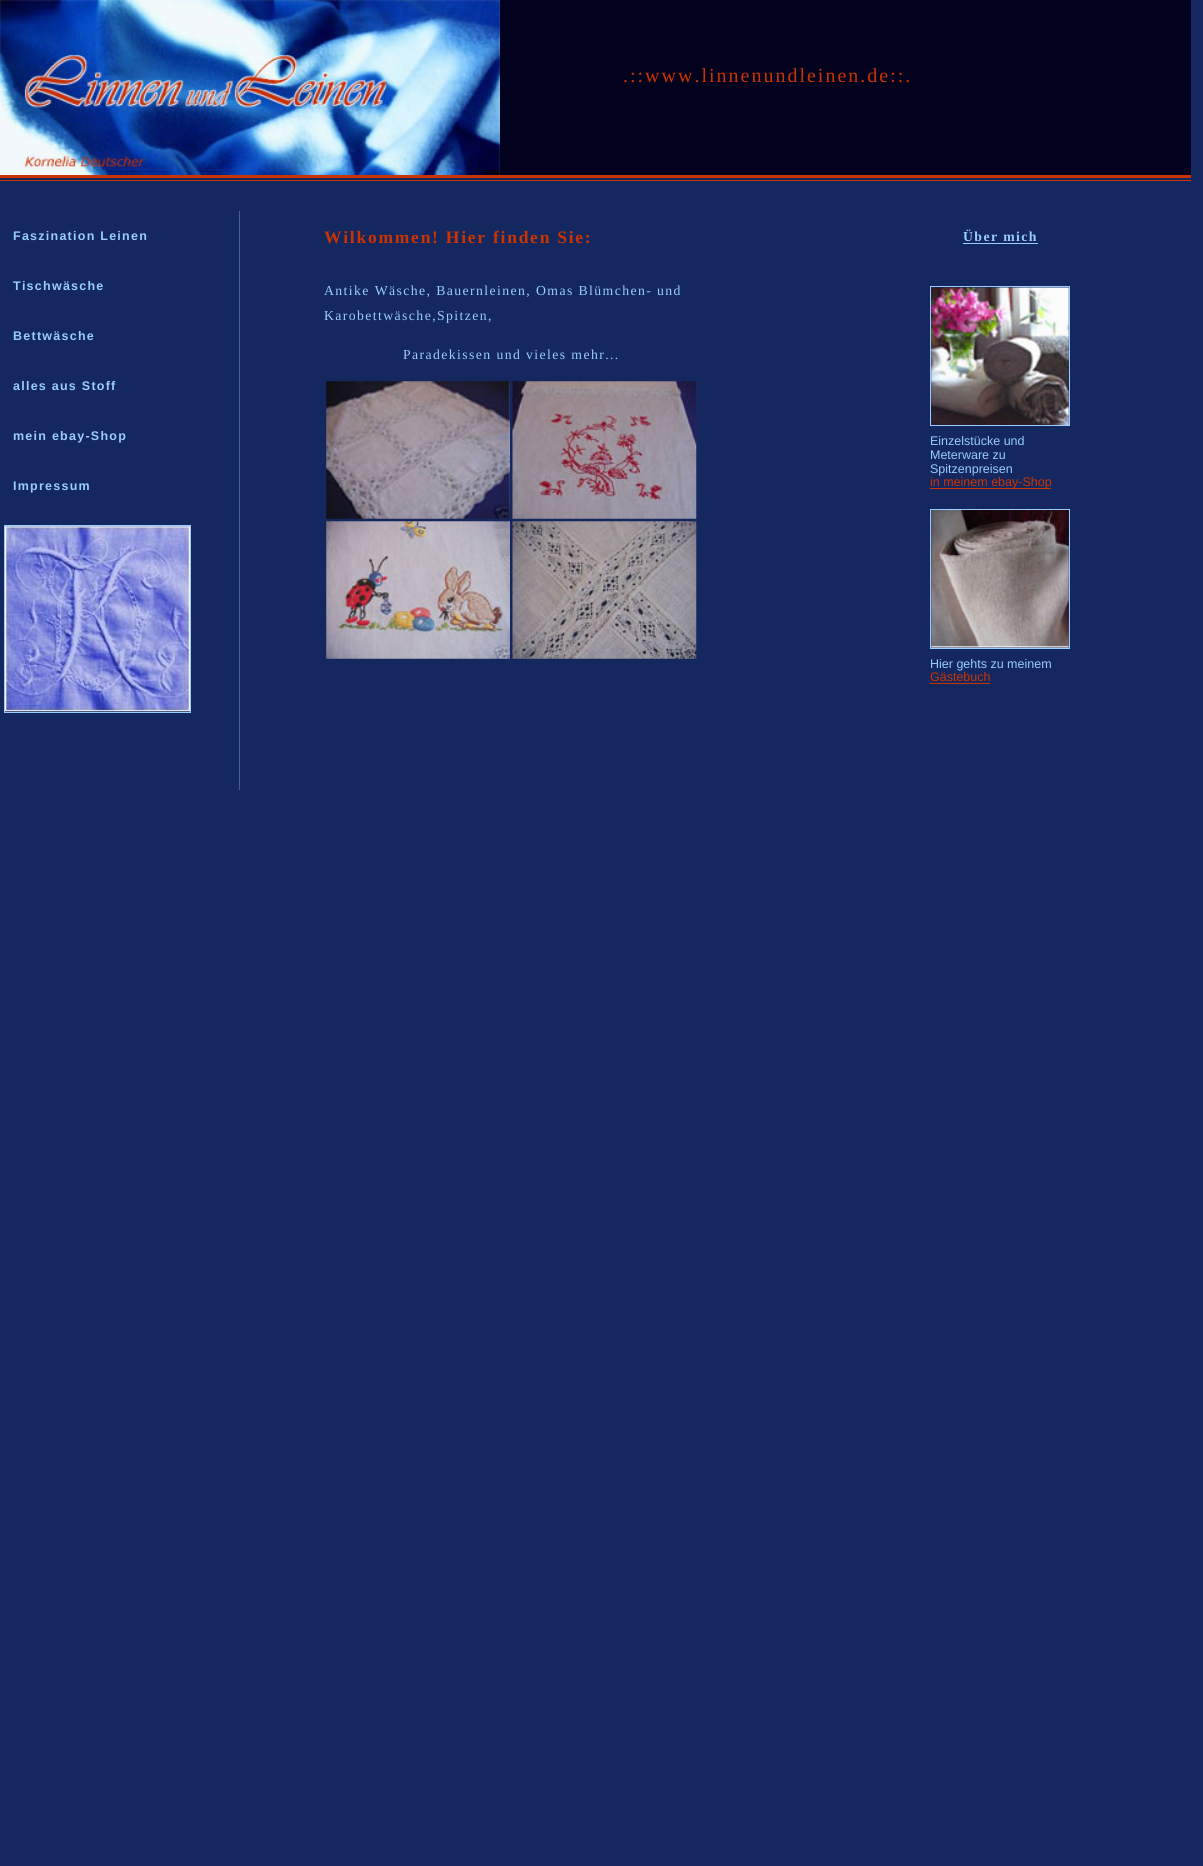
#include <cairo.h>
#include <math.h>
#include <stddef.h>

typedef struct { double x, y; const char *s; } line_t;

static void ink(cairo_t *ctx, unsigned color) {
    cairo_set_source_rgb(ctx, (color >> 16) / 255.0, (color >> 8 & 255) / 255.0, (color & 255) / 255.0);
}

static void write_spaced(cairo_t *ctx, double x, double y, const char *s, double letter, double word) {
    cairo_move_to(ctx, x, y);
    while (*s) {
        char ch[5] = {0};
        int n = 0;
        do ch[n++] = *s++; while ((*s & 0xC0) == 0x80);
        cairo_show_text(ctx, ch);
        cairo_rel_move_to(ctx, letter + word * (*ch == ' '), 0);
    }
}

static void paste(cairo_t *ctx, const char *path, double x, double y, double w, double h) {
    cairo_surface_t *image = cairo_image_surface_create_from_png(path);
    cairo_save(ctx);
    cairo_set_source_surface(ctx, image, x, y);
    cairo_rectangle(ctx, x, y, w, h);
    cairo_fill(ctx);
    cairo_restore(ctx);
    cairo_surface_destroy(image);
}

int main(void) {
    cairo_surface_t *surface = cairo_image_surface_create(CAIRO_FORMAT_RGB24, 1203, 1866);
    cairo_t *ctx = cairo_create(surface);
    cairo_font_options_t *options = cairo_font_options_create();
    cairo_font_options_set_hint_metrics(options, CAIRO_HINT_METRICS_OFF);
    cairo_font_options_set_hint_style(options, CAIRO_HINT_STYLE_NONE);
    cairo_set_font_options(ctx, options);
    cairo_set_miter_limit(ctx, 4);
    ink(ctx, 0x14285F);
    cairo_paint(ctx);
    ink(ctx, 0x02021E);
    cairo_rectangle(ctx, 500, 0, 691, 175);
    cairo_fill(ctx);
    paste(ctx, "media/1.png", 0, 0, 500, 175);
    cairo_select_font_face(ctx, "Liberation Serif", CAIRO_FONT_SLANT_NORMAL, CAIRO_FONT_WEIGHT_NORMAL);
    cairo_set_font_size(ctx, 20);
    ink(ctx, 0xCC3300);
    write_spaced(ctx, 623, 82, ".::www.linnenundleinen.de::.", 2, 0);
    cairo_rectangle(ctx, 0, 175, 1191, 3);
    cairo_fill(ctx);
    cairo_rectangle(ctx, 0, 180, 1191, 1);
    cairo_fill(ctx);
    cairo_select_font_face(ctx, "Liberation Sans", CAIRO_FONT_SLANT_NORMAL, CAIRO_FONT_WEIGHT_BOLD);
    cairo_set_font_size(ctx, 12.5);
    ink(ctx, 0x99CCFF);
    {
        static const line_t items[] = {
            {13, 240, "Faszination Leinen"},
            {13, 290, "Tischwäsche"},
            {13, 340, "Bettwäsche"},
            {13, 390, "alles aus Stoff"},
            {13, 440, "mein ebay-Shop"},
            {13, 490, "Impressum"},
        };
        for (size_t i = 0; i < sizeof items / sizeof *items; i++) {
            write_spaced(ctx, items[i].x, items[i].y, items[i].s, 1.25, 0);
        }
    }
    cairo_rectangle(ctx, 4.5, 525.5, 186, 187);
    cairo_set_line_width(ctx, 1);
    cairo_stroke(ctx);
    paste(ctx, "media/2.png", 5, 526, 185, 186);
    ink(ctx, 0x445DA0);
    cairo_rectangle(ctx, 239, 211, 1, 579);
    cairo_fill(ctx);
    cairo_select_font_face(ctx, "Liberation Serif", CAIRO_FONT_SLANT_NORMAL, CAIRO_FONT_WEIGHT_BOLD);
    cairo_set_font_size(ctx, 17.5);
    ink(ctx, 0xCC3300);
    write_spaced(ctx, 324, 243, "Wilkommen! Hier finden Sie:", 1.75, 0);
    cairo_select_font_face(ctx, "Liberation Serif", CAIRO_FONT_SLANT_NORMAL, CAIRO_FONT_WEIGHT_NORMAL);
    cairo_set_font_size(ctx, 13.75);
    ink(ctx, 0x99CCFF);
    {
        static const line_t items[] = {
            {324, 295, "Antike Wäsche, Bauernleinen, Omas Blümchen- und"},
            {324, 320, "Karobettwäsche,Spitzen,"},
            {403, 359, "Paradekissen und vieles mehr..."},
        };
        for (size_t i = 0; i < sizeof items / sizeof *items; i++) {
            write_spaced(ctx, items[i].x, items[i].y, items[i].s, 1.4, 0);
        }
    }
    paste(ctx, "media/3.png", 326, 381, 184, 138);
    paste(ctx, "media/4.png", 512, 381, 185, 138);
    paste(ctx, "media/5.png", 326, 521, 184, 138);
    paste(ctx, "media/6.png", 512, 521, 185, 138);
    cairo_select_font_face(ctx, "Liberation Serif", CAIRO_FONT_SLANT_NORMAL, CAIRO_FONT_WEIGHT_BOLD);
    write_spaced(ctx, 963, 241, "Über mich", 1.4, 0);
    cairo_rectangle(ctx, 963, 243, 75, 1);
    cairo_fill(ctx);
    cairo_rectangle(ctx, 930.5, 286.5, 139, 139);
    cairo_stroke(ctx);
    paste(ctx, "media/7.png", 931, 287, 138, 138);
    cairo_select_font_face(ctx, "Liberation Sans", CAIRO_FONT_SLANT_NORMAL, CAIRO_FONT_WEIGHT_NORMAL);
    cairo_set_font_size(ctx, 12.5);
    {
        static const line_t items[] = {
            {930, 445, "Einzelstücke und"},
            {930, 459, "Meterware zu"},
            {930, 473, "Spitzenpreisen"},
        };
        for (size_t i = 0; i < sizeof items / sizeof *items; i++) {
            cairo_move_to(ctx, items[i].x, items[i].y);
            cairo_show_text(ctx, items[i].s);
        }
    }
    ink(ctx, 0xCC3300);
    cairo_rectangle(ctx, 930, 488, 121, 1);
    cairo_fill(ctx);
    cairo_move_to(ctx, 930, 486);
    cairo_show_text(ctx, "in meinem ebay-Shop");
    cairo_rectangle(ctx, 930.5, 509.5, 139, 139);
    ink(ctx, 0x99CCFF);
    cairo_stroke(ctx);
    paste(ctx, "media/8.png", 931, 510, 138, 138);
    cairo_move_to(ctx, 930, 668);
    cairo_show_text(ctx, "Hier gehts zu meinem");
    ink(ctx, 0xCC3300);
    cairo_move_to(ctx, 930, 681);
    cairo_show_text(ctx, "Gästebuch");
    cairo_rectangle(ctx, 930, 683, 60, 1);
    cairo_fill(ctx);
    cairo_surface_write_to_png(surface, "image.png");
    cairo_font_options_destroy(options);
    cairo_destroy(ctx);
    cairo_surface_destroy(surface);
    return 0;
}
